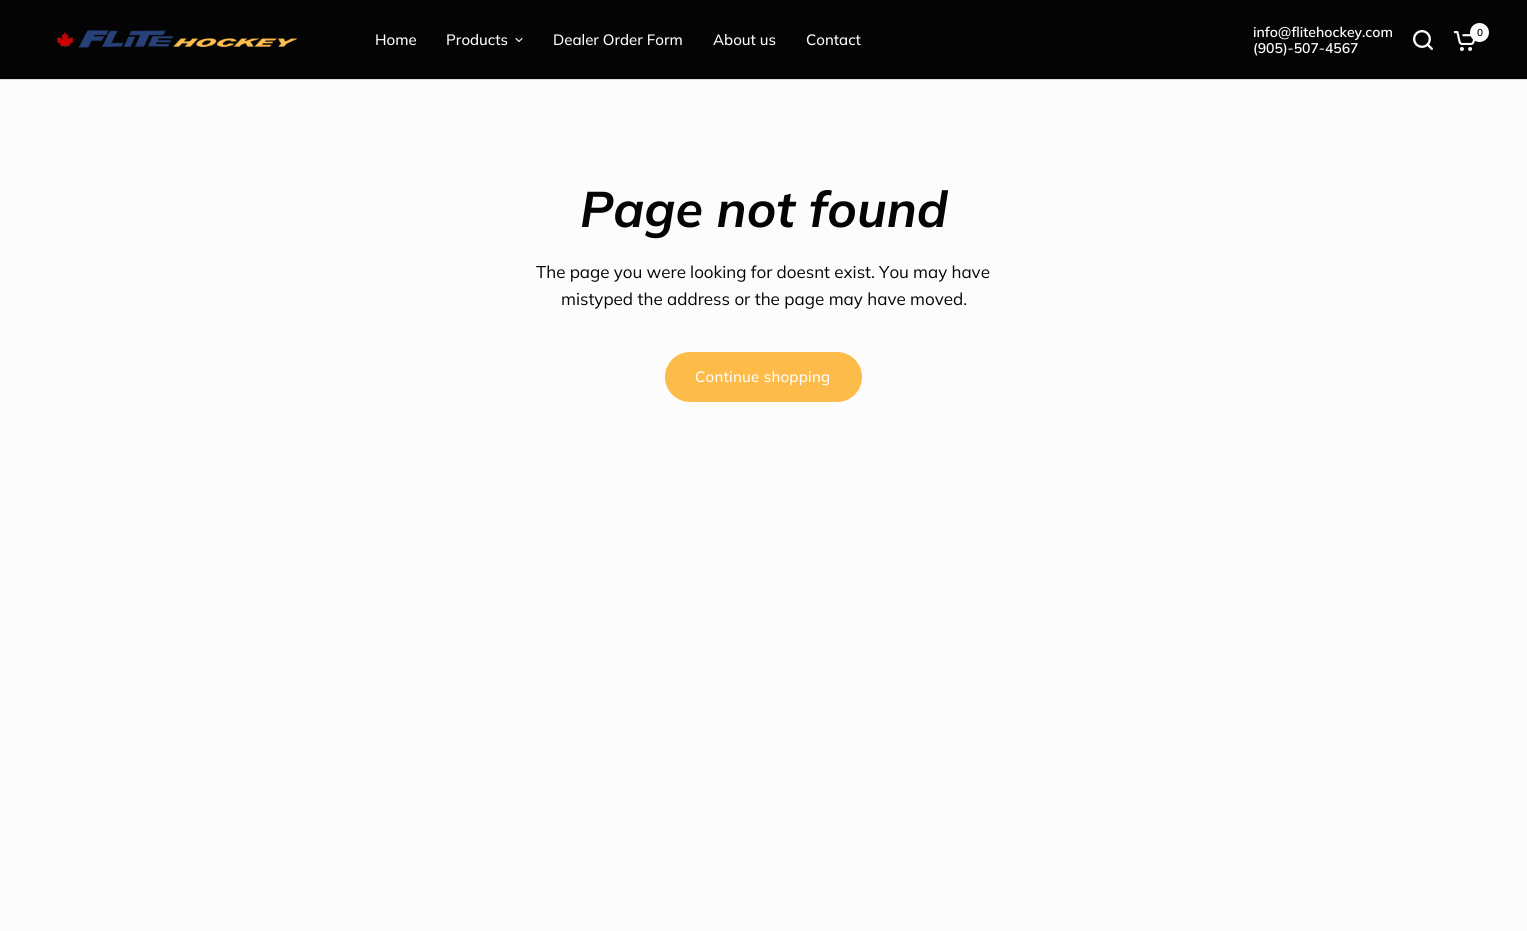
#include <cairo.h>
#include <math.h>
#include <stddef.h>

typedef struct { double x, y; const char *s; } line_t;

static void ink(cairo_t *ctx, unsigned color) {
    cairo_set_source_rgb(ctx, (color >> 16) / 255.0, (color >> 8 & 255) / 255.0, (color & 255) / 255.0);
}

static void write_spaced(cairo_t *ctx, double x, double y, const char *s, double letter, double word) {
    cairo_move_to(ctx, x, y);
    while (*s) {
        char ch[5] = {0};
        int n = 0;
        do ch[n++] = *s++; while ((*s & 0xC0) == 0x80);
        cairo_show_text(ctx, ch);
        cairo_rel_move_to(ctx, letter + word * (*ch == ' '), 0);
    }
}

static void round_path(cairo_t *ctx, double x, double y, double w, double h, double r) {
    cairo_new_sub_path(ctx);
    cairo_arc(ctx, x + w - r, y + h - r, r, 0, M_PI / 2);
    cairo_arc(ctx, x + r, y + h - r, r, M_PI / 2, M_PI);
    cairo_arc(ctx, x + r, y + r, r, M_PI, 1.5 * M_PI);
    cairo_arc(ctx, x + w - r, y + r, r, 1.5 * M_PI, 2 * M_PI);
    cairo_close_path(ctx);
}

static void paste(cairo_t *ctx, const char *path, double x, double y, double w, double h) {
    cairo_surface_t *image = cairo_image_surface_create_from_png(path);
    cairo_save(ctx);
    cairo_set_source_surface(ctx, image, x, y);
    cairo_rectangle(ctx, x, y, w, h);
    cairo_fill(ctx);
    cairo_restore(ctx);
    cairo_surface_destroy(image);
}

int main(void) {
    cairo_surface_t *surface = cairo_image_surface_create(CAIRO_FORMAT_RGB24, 1527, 931);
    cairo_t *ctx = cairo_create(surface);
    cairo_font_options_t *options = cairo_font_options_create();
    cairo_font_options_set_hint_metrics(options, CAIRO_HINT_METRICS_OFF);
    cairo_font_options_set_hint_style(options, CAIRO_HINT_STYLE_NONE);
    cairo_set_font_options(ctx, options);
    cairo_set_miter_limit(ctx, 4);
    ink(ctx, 0x040404);
    cairo_paint(ctx);
    paste(ctx, "media/1.png", 57, 30, 241, 18);
    cairo_select_font_face(ctx, "Muli Medium", CAIRO_FONT_SLANT_NORMAL, CAIRO_FONT_WEIGHT_NORMAL);
    cairo_set_font_size(ctx, 15);
    ink(ctx, 0xFFFFFF);
    cairo_move_to(ctx, 375, 45);
    cairo_show_text(ctx, "Home");
    cairo_move_to(ctx, 446, 45);
    cairo_show_text(ctx, "Products");
    cairo_new_path(ctx);
    cairo_move_to(ctx, 522, 38.5);
    cairo_line_to(ctx, 519, 41.5);
    cairo_line_to(ctx, 516, 38.5);
    ink(ctx, 0xFCFCFC);
    cairo_set_line_width(ctx, 1.1);
    cairo_set_line_cap(ctx, CAIRO_LINE_CAP_ROUND);
    cairo_set_line_join(ctx, CAIRO_LINE_JOIN_ROUND);
    cairo_stroke(ctx);
    ink(ctx, 0xFFFFFF);
    {
        static const line_t items[] = {
            {553, 45, "Dealer Order Form"},
            {713, 45, "About us"},
            {806, 45, "Contact"},
        };
        for (size_t i = 0; i < sizeof items / sizeof *items; i++) {
            cairo_move_to(ctx, items[i].x, items[i].y);
            cairo_show_text(ctx, items[i].s);
        }
    }
    cairo_select_font_face(ctx, "Muli SemiBold", CAIRO_FONT_SLANT_NORMAL, CAIRO_FONT_WEIGHT_NORMAL);
    cairo_set_font_size(ctx, 14);
    cairo_move_to(ctx, 1253, 37);
    cairo_show_text(ctx, "info@flitehockey.com");
    cairo_move_to(ctx, 1253, 53);
    cairo_show_text(ctx, "(905)-507-4567");
    paste(ctx, "media/2.png", 1413, 30, 20, 20);
    paste(ctx, "media/3.png", 1453, 31, 22, 20);
    ink(ctx, 0xFCFCFC);
    cairo_arc(ctx, 1479.5, 32.5, 9.5, 0, 2 * M_PI);
    cairo_fill(ctx);
    cairo_set_font_size(ctx, 10);
    ink(ctx, 0x040404);
    cairo_move_to(ctx, 1477, 36);
    cairo_show_text(ctx, "0");
    ink(ctx, 0xDADCE0);
    cairo_rectangle(ctx, 0, 79, 1527, 1);
    cairo_fill(ctx);
    ink(ctx, 0xFCFCFC);
    cairo_rectangle(ctx, 0, 80, 1527, 851);
    cairo_fill(ctx);
    cairo_select_font_face(ctx, "Muli", CAIRO_FONT_SLANT_ITALIC, CAIRO_FONT_WEIGHT_BOLD);
    cairo_set_font_size(ctx, 50);
    ink(ctx, 0x040404);
    cairo_move_to(ctx, 580, 227);
    cairo_show_text(ctx, "Page not found");
    cairo_select_font_face(ctx, "Muli", CAIRO_FONT_SLANT_NORMAL, CAIRO_FONT_WEIGHT_NORMAL);
    cairo_set_font_size(ctx, 17);
    write_spaced(ctx, 536, 278, "The page you were looking for doesnt exist. You may have", 0, -0.25);
    cairo_move_to(ctx, 561, 305);
    cairo_show_text(ctx, "mistyped the address or the page may have moved.");
    ink(ctx, 0xFDBB49);
    round_path(ctx, 665, 352, 197, 50, 25);
    cairo_fill(ctx);
    cairo_select_font_face(ctx, "Muli Medium", CAIRO_FONT_SLANT_NORMAL, CAIRO_FONT_WEIGHT_NORMAL);
    cairo_set_font_size(ctx, 15);
    ink(ctx, 0xFFFFFF);
    write_spaced(ctx, 695, 382, "Continue shopping", 0.25, 0);
    cairo_surface_write_to_png(surface, "image.png");
    cairo_font_options_destroy(options);
    cairo_destroy(ctx);
    cairo_surface_destroy(surface);
    return 0;
}
